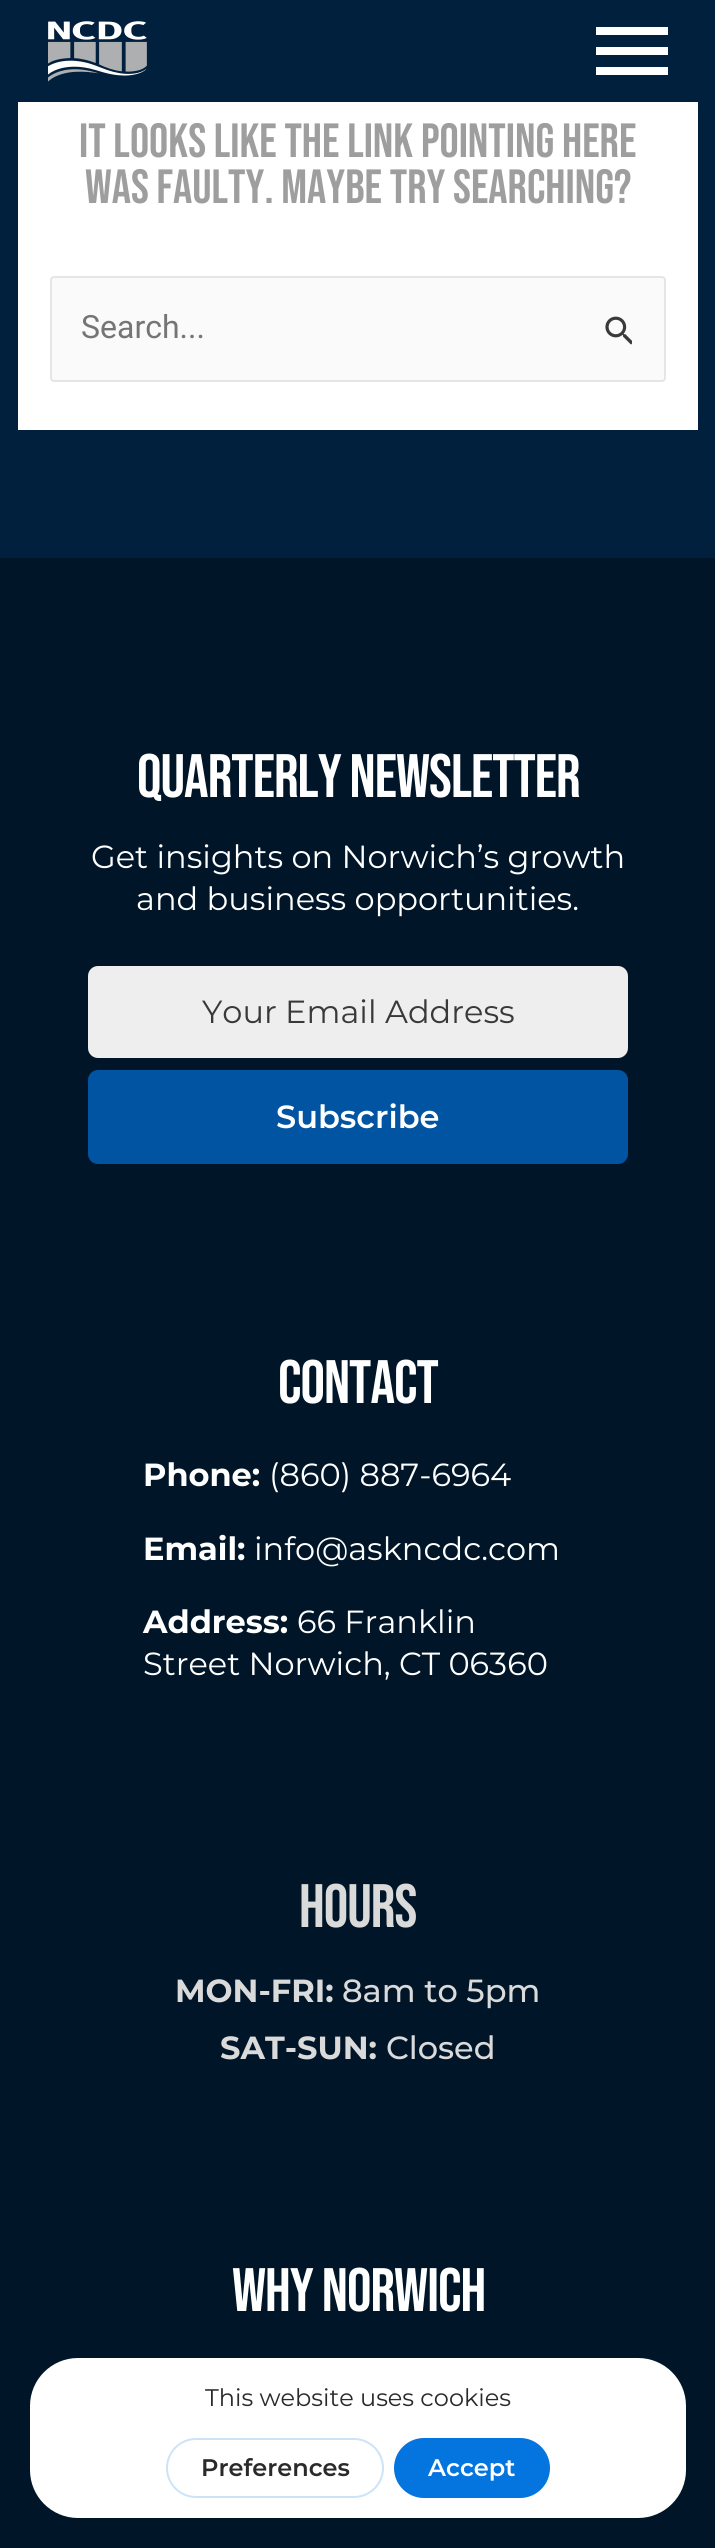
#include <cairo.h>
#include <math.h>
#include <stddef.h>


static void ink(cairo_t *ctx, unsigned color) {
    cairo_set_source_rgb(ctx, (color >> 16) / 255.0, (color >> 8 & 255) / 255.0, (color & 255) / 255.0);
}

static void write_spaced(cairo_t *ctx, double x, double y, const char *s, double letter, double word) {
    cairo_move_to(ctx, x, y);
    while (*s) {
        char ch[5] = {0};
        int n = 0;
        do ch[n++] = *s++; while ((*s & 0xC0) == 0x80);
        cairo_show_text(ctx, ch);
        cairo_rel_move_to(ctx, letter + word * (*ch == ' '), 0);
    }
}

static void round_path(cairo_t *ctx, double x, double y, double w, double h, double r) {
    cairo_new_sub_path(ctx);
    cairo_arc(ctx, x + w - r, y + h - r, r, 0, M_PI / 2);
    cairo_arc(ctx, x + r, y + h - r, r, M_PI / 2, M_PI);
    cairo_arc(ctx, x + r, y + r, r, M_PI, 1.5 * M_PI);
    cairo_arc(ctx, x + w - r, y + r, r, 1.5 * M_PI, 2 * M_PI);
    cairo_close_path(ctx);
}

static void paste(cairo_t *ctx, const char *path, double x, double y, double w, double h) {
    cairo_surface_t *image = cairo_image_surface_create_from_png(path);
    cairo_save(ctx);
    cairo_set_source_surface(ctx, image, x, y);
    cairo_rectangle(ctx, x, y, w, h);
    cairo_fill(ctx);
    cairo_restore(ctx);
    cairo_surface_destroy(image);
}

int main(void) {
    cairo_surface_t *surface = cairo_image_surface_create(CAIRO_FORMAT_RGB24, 715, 2548);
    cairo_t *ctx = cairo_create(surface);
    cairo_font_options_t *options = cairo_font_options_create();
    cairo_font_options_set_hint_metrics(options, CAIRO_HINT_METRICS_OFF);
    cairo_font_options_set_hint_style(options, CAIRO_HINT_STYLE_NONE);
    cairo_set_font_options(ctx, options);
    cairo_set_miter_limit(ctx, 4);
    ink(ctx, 0x01203D);
    cairo_paint(ctx);
    paste(ctx, "media/1.png", 48, 21, 99, 61);
    ink(ctx, 0xFFFFFF);
    cairo_new_path(ctx);
    cairo_move_to(ctx, 596, 75);
    cairo_line_to(ctx, 668, 75);
    cairo_line_to(ctx, 668, 67);
    cairo_line_to(ctx, 596, 67);
    cairo_close_path(ctx);
    cairo_move_to(ctx, 596, 55);
    cairo_line_to(ctx, 668, 55);
    cairo_line_to(ctx, 668, 47);
    cairo_line_to(ctx, 596, 47);
    cairo_close_path(ctx);
    cairo_move_to(ctx, 596, 27);
    cairo_line_to(ctx, 596, 35);
    cairo_line_to(ctx, 668, 35);
    cairo_line_to(ctx, 668, 27);
    cairo_close_path(ctx);
    cairo_fill(ctx);
    cairo_rectangle(ctx, 18, 102, 680, 328);
    cairo_fill(ctx);
    cairo_select_font_face(ctx, "Bebas Neue", CAIRO_FONT_SLANT_NORMAL, CAIRO_FONT_WEIGHT_NORMAL);
    cairo_set_font_size(ctx, 48);
    ink(ctx, 0x9E9E9E);
    cairo_move_to(ctx, 79, 157);
    cairo_show_text(ctx, "It looks like the link pointing here");
    cairo_move_to(ctx, 85, 203);
    cairo_show_text(ctx, "was faulty. Maybe try searching?");
    ink(ctx, 0xFAFAFA);
    round_path(ctx, 51, 277, 614, 104, 3);
    cairo_fill_preserve(ctx);
    ink(ctx, 0xE5E5E5);
    cairo_stroke(ctx);
    cairo_select_font_face(ctx, "Roboto", CAIRO_FONT_SLANT_NORMAL, CAIRO_FONT_WEIGHT_NORMAL);
    cairo_set_font_size(ctx, 32);
    ink(ctx, 0x757575);
    cairo_move_to(ctx, 81, 338);
    cairo_show_text(ctx, "Search...");
    paste(ctx, "media/2.png", 605, 316, 27, 29);
    ink(ctx, 0x001628);
    cairo_rectangle(ctx, 0, 558, 715, 1990);
    cairo_fill(ctx);
    cairo_select_font_face(ctx, "Bebas Neue", CAIRO_FONT_SLANT_NORMAL, CAIRO_FONT_WEIGHT_NORMAL);
    cairo_set_font_size(ctx, 61.25);
    ink(ctx, 0xFFFFFF);
    write_spaced(ctx, 137, 797, "QUARTERLY NEWSLETTER", -1, 0);
    cairo_select_font_face(ctx, "Montserrat", CAIRO_FONT_SLANT_NORMAL, CAIRO_FONT_WEIGHT_NORMAL);
    cairo_set_font_size(ctx, 32);
    cairo_move_to(ctx, 91, 868);
    cairo_show_text(ctx, "Get insights on Norwich’s growth");
    cairo_move_to(ctx, 136, 910);
    cairo_show_text(ctx, "and business opportunities.");
    ink(ctx, 0xEEEEEE);
    round_path(ctx, 88, 966, 540, 92, 10);
    cairo_fill(ctx);
    ink(ctx, 0x3A3939);
    cairo_move_to(ctx, 202, 1023);
    cairo_show_text(ctx, "Your Email Address");
    ink(ctx, 0x0054A2);
    round_path(ctx, 88, 1070, 540, 94, 10);
    cairo_fill(ctx);
    cairo_select_font_face(ctx, "Montserrat SemiBold", CAIRO_FONT_SLANT_NORMAL, CAIRO_FONT_WEIGHT_NORMAL);
    ink(ctx, 0xFFFFFF);
    cairo_move_to(ctx, 276, 1128);
    cairo_show_text(ctx, "Subscribe");
    cairo_select_font_face(ctx, "Bebas Neue", CAIRO_FONT_SLANT_NORMAL, CAIRO_FONT_WEIGHT_NORMAL);
    cairo_set_font_size(ctx, 61.25);
    write_spaced(ctx, 278, 1403, "CONTACT", -1, 0);
    cairo_select_font_face(ctx, "Montserrat", CAIRO_FONT_SLANT_NORMAL, CAIRO_FONT_WEIGHT_BOLD);
    cairo_set_font_size(ctx, 32);
    cairo_move_to(ctx, 143, 1486);
    cairo_show_text(ctx, "Phone:");
    cairo_select_font_face(ctx, "Montserrat", CAIRO_FONT_SLANT_NORMAL, CAIRO_FONT_WEIGHT_NORMAL);
    cairo_move_to(ctx, 269, 1486);
    cairo_show_text(ctx, "(860) 887-6964");
    cairo_select_font_face(ctx, "Montserrat", CAIRO_FONT_SLANT_NORMAL, CAIRO_FONT_WEIGHT_BOLD);
    cairo_move_to(ctx, 143, 1560);
    cairo_show_text(ctx, "Email:");
    cairo_select_font_face(ctx, "Montserrat", CAIRO_FONT_SLANT_NORMAL, CAIRO_FONT_WEIGHT_NORMAL);
    cairo_move_to(ctx, 254, 1560);
    cairo_show_text(ctx, "info@askncdc.com");
    cairo_select_font_face(ctx, "Montserrat", CAIRO_FONT_SLANT_NORMAL, CAIRO_FONT_WEIGHT_BOLD);
    cairo_move_to(ctx, 143, 1633);
    cairo_show_text(ctx, "Address:");
    cairo_select_font_face(ctx, "Montserrat", CAIRO_FONT_SLANT_NORMAL, CAIRO_FONT_WEIGHT_NORMAL);
    cairo_move_to(ctx, 297, 1633);
    cairo_show_text(ctx, "66 Franklin");
    cairo_move_to(ctx, 143, 1675);
    cairo_show_text(ctx, "Street Norwich, CT 06360");
    cairo_select_font_face(ctx, "Bebas Neue", CAIRO_FONT_SLANT_NORMAL, CAIRO_FONT_WEIGHT_NORMAL);
    cairo_set_font_size(ctx, 61.25);
    ink(ctx, 0xDADADA);
    write_spaced(ctx, 299, 1927, "HOURS", -1, 0);
    cairo_select_font_face(ctx, "Montserrat", CAIRO_FONT_SLANT_NORMAL, CAIRO_FONT_WEIGHT_BOLD);
    cairo_set_font_size(ctx, 32);
    cairo_move_to(ctx, 175, 2002);
    cairo_show_text(ctx, "MON-FRI:");
    cairo_select_font_face(ctx, "Montserrat Medium", CAIRO_FONT_SLANT_NORMAL, CAIRO_FONT_WEIGHT_NORMAL);
    cairo_move_to(ctx, 342, 2002);
    cairo_show_text(ctx, "8am to 5pm");
    cairo_select_font_face(ctx, "Montserrat", CAIRO_FONT_SLANT_NORMAL, CAIRO_FONT_WEIGHT_BOLD);
    cairo_move_to(ctx, 220, 2059);
    cairo_show_text(ctx, "SAT-SUN:");
    cairo_select_font_face(ctx, "Montserrat Medium", CAIRO_FONT_SLANT_NORMAL, CAIRO_FONT_WEIGHT_NORMAL);
    cairo_move_to(ctx, 386, 2059);
    cairo_show_text(ctx, "Closed");
    cairo_select_font_face(ctx, "Bebas Neue", CAIRO_FONT_SLANT_NORMAL, CAIRO_FONT_WEIGHT_NORMAL);
    cairo_set_font_size(ctx, 61.25);
    ink(ctx, 0xFFFFFF);
    write_spaced(ctx, 232, 2311, "WHY NORWICH", -1, 0);
    round_path(ctx, 30, 2358, 656, 160, 48);
    cairo_fill(ctx);
    cairo_select_font_face(ctx, "Montserrat", CAIRO_FONT_SLANT_NORMAL, CAIRO_FONT_WEIGHT_NORMAL);
    cairo_set_font_size(ctx, 24);
    ink(ctx, 0x2A2A2A);
    cairo_move_to(ctx, 205, 2406);
    cairo_show_text(ctx, "This website uses cookies");
    round_path(ctx, 167, 2439, 216, 58, 29);
    ink(ctx, 0xCDE3F8);
    cairo_stroke(ctx);
    cairo_select_font_face(ctx, "Montserrat SemiBold", CAIRO_FONT_SLANT_NORMAL, CAIRO_FONT_WEIGHT_NORMAL);
    ink(ctx, 0x2A2A2A);
    cairo_move_to(ctx, 201, 2476);
    cairo_show_text(ctx, "Preferences");
    ink(ctx, 0x0474DE);
    round_path(ctx, 395, 2439, 154, 58, 29);
    cairo_fill_preserve(ctx);
    cairo_stroke(ctx);
    ink(ctx, 0xFFFFFF);
    cairo_move_to(ctx, 428, 2476);
    cairo_show_text(ctx, "Accept");
    cairo_surface_write_to_png(surface, "image.png");
    cairo_font_options_destroy(options);
    cairo_destroy(ctx);
    cairo_surface_destroy(surface);
    return 0;
}
